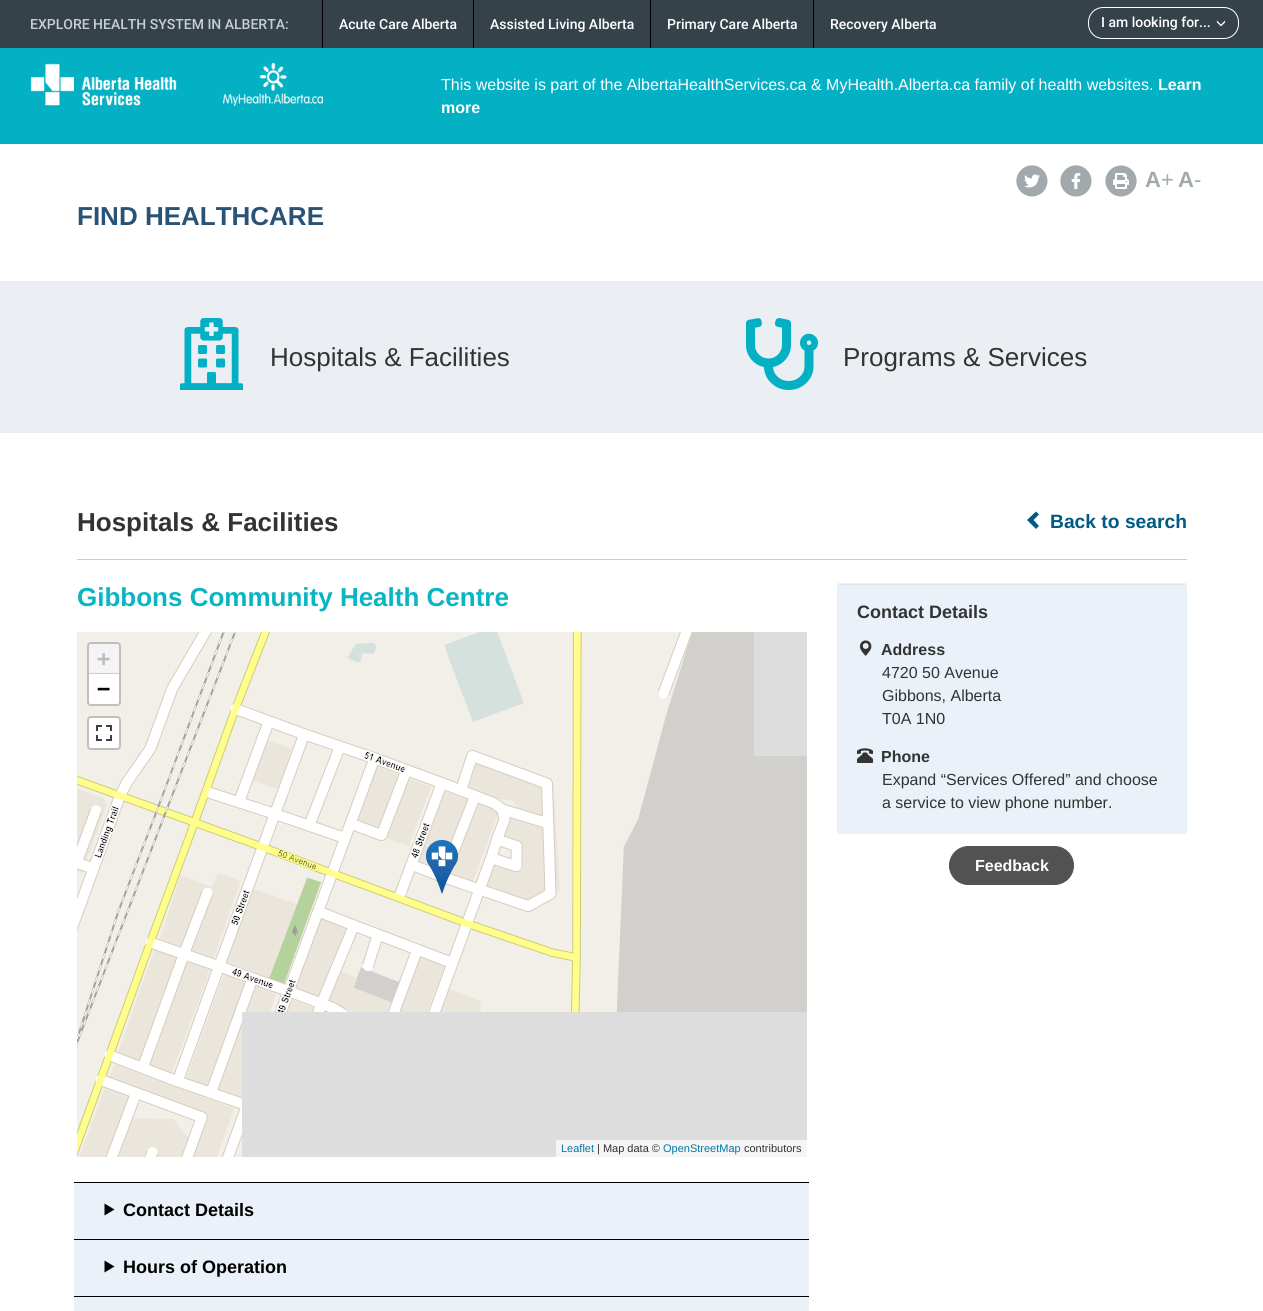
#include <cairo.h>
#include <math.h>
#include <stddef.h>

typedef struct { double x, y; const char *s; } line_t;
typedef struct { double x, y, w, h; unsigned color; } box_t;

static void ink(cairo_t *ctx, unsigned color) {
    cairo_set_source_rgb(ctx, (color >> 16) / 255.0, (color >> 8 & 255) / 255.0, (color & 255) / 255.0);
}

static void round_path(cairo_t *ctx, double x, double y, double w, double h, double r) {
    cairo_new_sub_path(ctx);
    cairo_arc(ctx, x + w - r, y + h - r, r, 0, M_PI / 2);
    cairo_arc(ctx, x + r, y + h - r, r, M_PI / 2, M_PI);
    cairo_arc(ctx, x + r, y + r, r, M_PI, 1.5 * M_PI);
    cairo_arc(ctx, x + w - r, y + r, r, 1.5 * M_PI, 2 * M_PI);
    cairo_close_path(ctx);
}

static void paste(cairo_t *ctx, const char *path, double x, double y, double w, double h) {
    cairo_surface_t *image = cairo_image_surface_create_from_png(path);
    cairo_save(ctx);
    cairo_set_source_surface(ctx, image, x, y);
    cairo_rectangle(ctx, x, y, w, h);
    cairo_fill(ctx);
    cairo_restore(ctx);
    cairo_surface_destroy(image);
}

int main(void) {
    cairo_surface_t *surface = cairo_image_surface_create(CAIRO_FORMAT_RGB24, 1263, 1311);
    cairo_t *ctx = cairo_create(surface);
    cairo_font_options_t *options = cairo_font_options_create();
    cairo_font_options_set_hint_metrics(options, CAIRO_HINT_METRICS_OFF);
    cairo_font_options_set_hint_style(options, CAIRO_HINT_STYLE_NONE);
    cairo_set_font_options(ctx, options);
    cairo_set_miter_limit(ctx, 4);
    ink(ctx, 0xFFFFFF);
    cairo_paint(ctx);
    ink(ctx, 0x36424A);
    cairo_rectangle(ctx, 0, 0, 1263, 48);
    cairo_fill(ctx);
    cairo_select_font_face(ctx, "Roboto Medium", CAIRO_FONT_SLANT_NORMAL, CAIRO_FONT_WEIGHT_NORMAL);
    cairo_set_font_size(ctx, 14);
    ink(ctx, 0xC6D0D6);
    cairo_move_to(ctx, 30, 29);
    cairo_show_text(ctx, "EXPLORE HEALTH SYSTEM IN ALBERTA:");
    ink(ctx, 0x000000);
    cairo_rectangle(ctx, 322, 0, 1, 48);
    cairo_fill(ctx);
    ink(ctx, 0xFFFFFF);
    cairo_move_to(ctx, 339, 29);
    cairo_show_text(ctx, "Acute Care Alberta");
    ink(ctx, 0x000000);
    cairo_rectangle(ctx, 473, 0, 1, 48);
    cairo_fill(ctx);
    ink(ctx, 0xFFFFFF);
    cairo_move_to(ctx, 490, 29);
    cairo_show_text(ctx, "Assisted Living Alberta");
    ink(ctx, 0x000000);
    cairo_rectangle(ctx, 650, 0, 1, 48);
    cairo_fill(ctx);
    ink(ctx, 0xFFFFFF);
    cairo_move_to(ctx, 667, 29);
    cairo_show_text(ctx, "Primary Care Alberta");
    ink(ctx, 0x000000);
    cairo_rectangle(ctx, 813, 0, 1, 48);
    cairo_fill(ctx);
    ink(ctx, 0xFFFFFF);
    cairo_move_to(ctx, 830, 29);
    cairo_show_text(ctx, "Recovery Alberta");
    round_path(ctx, 1088.5, 7.5, 150, 31, 14.5);
    cairo_set_line_width(ctx, 1);
    cairo_stroke(ctx);
    cairo_move_to(ctx, 1101, 27);
    cairo_show_text(ctx, "I am looking for...");
    paste(ctx, "media/1.png", 1216, 20, 10, 7);
    ink(ctx, 0x04B0C4);
    cairo_rectangle(ctx, 0, 48, 1263, 96);
    cairo_fill(ctx);
    paste(ctx, "media/2.png", 30, 63, 147, 43);
    paste(ctx, "media/3.png", 223, 63, 100, 43);
    cairo_select_font_face(ctx, "Liberation Sans", CAIRO_FONT_SLANT_NORMAL, CAIRO_FONT_WEIGHT_NORMAL);
    cairo_set_font_size(ctx, 16);
    ink(ctx, 0xFFFFFF);
    cairo_move_to(ctx, 441, 90);
    cairo_show_text(ctx, "This website is part of the AlbertaHealthServices.ca & MyHealth.Alberta.ca family of health websites.");
    cairo_select_font_face(ctx, "Liberation Sans", CAIRO_FONT_SLANT_NORMAL, CAIRO_FONT_WEIGHT_BOLD);
    cairo_move_to(ctx, 1158, 90);
    cairo_show_text(ctx, "Learn");
    cairo_move_to(ctx, 441, 113);
    cairo_show_text(ctx, "more");
    ink(ctx, 0xA1A9AC);
    cairo_new_path(ctx);
    cairo_move_to(ctx, 1021, 170);
    cairo_curve_to(ctx, 1031.5, 159.5, 1048.5, 168, 1047.5, 182.5);
    cairo_curve_to(ctx, 1047, 186, 1045.5, 189.5, 1043, 192);
    cairo_curve_to(ctx, 1040.5, 194.5, 1037, 196, 1033.5, 196.5);
    cairo_curve_to(ctx, 1019, 197.5, 1010.5, 180.5, 1021, 170);
    cairo_close_path(ctx);
    cairo_fill(ctx);
    paste(ctx, "media/4.png", 1024, 174, 16, 14);
    cairo_new_path(ctx);
    cairo_move_to(ctx, 1065, 170);
    cairo_curve_to(ctx, 1075.5, 159.5, 1092.5, 168, 1091.5, 182.5);
    cairo_curve_to(ctx, 1091, 186, 1089.5, 189.5, 1087, 192);
    cairo_curve_to(ctx, 1084.5, 194.5, 1081, 196, 1077.5, 196.5);
    cairo_curve_to(ctx, 1063, 197.5, 1054.5, 180.5, 1065, 170);
    cairo_close_path(ctx);
    cairo_fill(ctx);
    paste(ctx, "media/5.png", 1071, 173, 10, 16);
    cairo_new_path(ctx);
    cairo_move_to(ctx, 1110, 170);
    cairo_curve_to(ctx, 1112.5, 167.5, 1116, 166, 1119.5, 165.5);
    cairo_curve_to(ctx, 1134, 164.5, 1142.5, 181.5, 1132, 192);
    cairo_curve_to(ctx, 1129.5, 194.5, 1126, 196, 1122.5, 196.5);
    cairo_curve_to(ctx, 1108, 197.5, 1099.5, 180.5, 1110, 170);
    cairo_close_path(ctx);
    cairo_fill(ctx);
    paste(ctx, "media/6.png", 1113, 173, 16, 16);
    cairo_set_font_size(ctx, 22);
    cairo_move_to(ctx, 1145, 187);
    cairo_show_text(ctx, "A");
    cairo_select_font_face(ctx, "Liberation Sans", CAIRO_FONT_SLANT_NORMAL, CAIRO_FONT_WEIGHT_NORMAL);
    cairo_move_to(ctx, 1161, 187);
    cairo_show_text(ctx, "+");
    cairo_select_font_face(ctx, "Liberation Sans", CAIRO_FONT_SLANT_NORMAL, CAIRO_FONT_WEIGHT_BOLD);
    cairo_move_to(ctx, 1178, 187);
    cairo_show_text(ctx, "A");
    cairo_select_font_face(ctx, "Liberation Sans", CAIRO_FONT_SLANT_NORMAL, CAIRO_FONT_WEIGHT_NORMAL);
    cairo_move_to(ctx, 1194, 187);
    cairo_show_text(ctx, "-");
    cairo_select_font_face(ctx, "Liberation Sans", CAIRO_FONT_SLANT_NORMAL, CAIRO_FONT_WEIGHT_BOLD);
    cairo_set_font_size(ctx, 26);
    ink(ctx, 0x295376);
    cairo_move_to(ctx, 77, 225);
    cairo_show_text(ctx, "FIND HEALTHCARE");
    ink(ctx, 0xEBEFF3);
    cairo_rectangle(ctx, 0, 281, 1263, 152);
    cairo_fill(ctx);
    paste(ctx, "media/7.png", 180, 318, 63, 72);
    cairo_select_font_face(ctx, "Liberation Sans", CAIRO_FONT_SLANT_NORMAL, CAIRO_FONT_WEIGHT_NORMAL);
    ink(ctx, 0x333333);
    cairo_move_to(ctx, 270, 366);
    cairo_show_text(ctx, "Hospitals & Facilities");
    paste(ctx, "media/8.png", 746, 318, 72, 72);
    cairo_move_to(ctx, 843, 366);
    cairo_show_text(ctx, "Programs & Services");
    cairo_select_font_face(ctx, "Liberation Sans", CAIRO_FONT_SLANT_NORMAL, CAIRO_FONT_WEIGHT_BOLD);
    cairo_move_to(ctx, 77, 531);
    cairo_show_text(ctx, "Hospitals & Facilities");
    ink(ctx, 0x005A83);
    cairo_new_path(ctx);
    cairo_move_to(ctx, 1039, 514.5);
    cairo_line_to(ctx, 1033.5, 520);
    cairo_line_to(ctx, 1039, 526);
    cairo_line_to(ctx, 1036, 529);
    cairo_line_to(ctx, 1027, 520);
    cairo_line_to(ctx, 1036, 511.5);
    cairo_close_path(ctx);
    cairo_fill(ctx);
    cairo_set_font_size(ctx, 19.25);
    cairo_move_to(ctx, 1050, 528);
    cairo_show_text(ctx, "Back to search");
    ink(ctx, 0xCCCCCC);
    cairo_rectangle(ctx, 77, 559, 1110, 1);
    cairo_fill(ctx);
    cairo_set_font_size(ctx, 26);
    ink(ctx, 0x07B5C3);
    cairo_move_to(ctx, 77, 606);
    cairo_show_text(ctx, "Gibbons Community Health Centre");
    ink(ctx, 0xDDDDDD);
    cairo_rectangle(ctx, 242, 632, 565, 525);
    cairo_fill(ctx);
    paste(ctx, "media/9.png", 77, 632, 165, 124);
    paste(ctx, "media/10.png", 242, 632, 256, 124);
    paste(ctx, "media/11.png", 498, 632, 256, 124);
    paste(ctx, "media/12.png", 77, 756, 165, 256);
    paste(ctx, "media/13.png", 242, 756, 256, 256);
    paste(ctx, "media/14.png", 498, 756, 256, 256);
    ink(ctx, 0xD1D0CD);
    cairo_rectangle(ctx, 754, 756, 53, 256);
    cairo_fill(ctx);
    paste(ctx, "media/15.png", 77, 1012, 165, 145);
    paste(ctx, "media/16.png", 426, 840, 32, 54);
    round_path(ctx, 88, 643, 32, 62, 3);
    ink(ctx, 0xC2BFBA);
    cairo_set_line_width(ctx, 2);
    cairo_stroke(ctx);
    ink(ctx, 0xF4F4F4);
    cairo_new_path(ctx);
    cairo_move_to(ctx, 91, 644);
    cairo_line_to(ctx, 117, 644);
    cairo_curve_to(ctx, 118, 644, 119, 645, 119, 646);
    cairo_line_to(ctx, 119, 674);
    cairo_line_to(ctx, 89, 674);
    cairo_line_to(ctx, 89, 646);
    cairo_curve_to(ctx, 89, 645, 90, 644, 91, 644);
    cairo_close_path(ctx);
    cairo_fill(ctx);
    ink(ctx, 0xCCCCCC);
    cairo_rectangle(ctx, 89, 673, 30, 1);
    cairo_fill(ctx);
    cairo_select_font_face(ctx, "DejaVu Sans Mono", CAIRO_FONT_SLANT_NORMAL, CAIRO_FONT_WEIGHT_BOLD);
    cairo_set_font_size(ctx, 22);
    ink(ctx, 0xBBBBBB);
    cairo_move_to(ctx, 97, 666);
    cairo_show_text(ctx, "+");
    ink(ctx, 0xFFFFFF);
    cairo_new_path(ctx);
    cairo_move_to(ctx, 89, 674);
    cairo_line_to(ctx, 119, 674);
    cairo_line_to(ctx, 119, 702);
    cairo_curve_to(ctx, 119, 703, 118, 704, 117, 704);
    cairo_line_to(ctx, 91, 704);
    cairo_curve_to(ctx, 90, 704, 89, 703, 89, 702);
    cairo_close_path(ctx);
    cairo_fill(ctx);
    ink(ctx, 0x000000);
    cairo_move_to(ctx, 97, 696);
    cairo_show_text(ctx, "−");
    round_path(ctx, 88, 717, 32, 32, 3);
    ink(ctx, 0xC2BFBA);
    cairo_stroke(ctx);
    ink(ctx, 0xFFFFFF);
    round_path(ctx, 89, 718, 30, 30, 2);
    cairo_fill(ctx);
    paste(ctx, "media/17.png", 96, 725, 16, 16);
    ink(ctx, 0xF5F5F5);
    cairo_rectangle(ctx, 556, 1140, 251, 17);
    cairo_fill(ctx);
    cairo_select_font_face(ctx, "Liberation Sans", CAIRO_FONT_SLANT_NORMAL, CAIRO_FONT_WEIGHT_NORMAL);
    cairo_set_font_size(ctx, 11);
    ink(ctx, 0x0078A8);
    cairo_move_to(ctx, 561, 1152);
    cairo_show_text(ctx, "Leaflet");
    ink(ctx, 0x333333);
    cairo_move_to(ctx, 597, 1152);
    cairo_show_text(ctx, "| Map data ©");
    ink(ctx, 0x0078A8);
    cairo_move_to(ctx, 663, 1152);
    cairo_show_text(ctx, "OpenStreetMap");
    ink(ctx, 0x333333);
    cairo_move_to(ctx, 744, 1152);
    cairo_show_text(ctx, "contributors");
    {
        static const box_t items[] = {
            {74, 1183, 735, 56, 0xEAF1F8},
            {74, 1182, 735, 1, 0x000000},
            {74, 1239, 735, 1, 0x000000},
        };
        for (size_t i = 0; i < sizeof items / sizeof *items; i++) {
            ink(ctx, items[i].color);
            cairo_rectangle(ctx, items[i].x, items[i].y, items[i].w, items[i].h);
            cairo_fill(ctx);
        }
    }
    cairo_new_path(ctx);
    cairo_move_to(ctx, 104.5, 1203.5);
    cairo_line_to(ctx, 114.5, 1209.5);
    cairo_line_to(ctx, 104.5, 1215.5);
    cairo_close_path(ctx);
    cairo_fill(ctx);
    cairo_select_font_face(ctx, "Liberation Sans", CAIRO_FONT_SLANT_NORMAL, CAIRO_FONT_WEIGHT_BOLD);
    cairo_set_font_size(ctx, 18);
    cairo_move_to(ctx, 123, 1216);
    cairo_show_text(ctx, "Contact Details");
    ink(ctx, 0xEAF1F8);
    cairo_rectangle(ctx, 74, 1240, 735, 56);
    cairo_fill(ctx);
    ink(ctx, 0x000000);
    cairo_rectangle(ctx, 74, 1296, 735, 1);
    cairo_fill(ctx);
    cairo_new_path(ctx);
    cairo_move_to(ctx, 104.5, 1260.5);
    cairo_line_to(ctx, 114.5, 1266.5);
    cairo_line_to(ctx, 104.5, 1272.5);
    cairo_close_path(ctx);
    cairo_fill(ctx);
    cairo_move_to(ctx, 123, 1273);
    cairo_show_text(ctx, "Hours of Operation");
    ink(ctx, 0xEAF1F8);
    cairo_rectangle(ctx, 74, 1297, 735, 14);
    cairo_fill(ctx);
    round_path(ctx, 837, 583, 350, 251, 2);
    cairo_fill(ctx);
    ink(ctx, 0xDEE5EC);
    cairo_new_path(ctx);
    cairo_move_to(ctx, 839, 585);
    cairo_line_to(ctx, 1185, 585);
    cairo_curve_to(ctx, 1186, 585, 1186, 585, 1186, 586);
    cairo_line_to(ctx, 1186, 585);
    cairo_line_to(ctx, 1185, 584);
    cairo_line_to(ctx, 838, 584);
    cairo_line_to(ctx, 838, 586);
    cairo_curve_to(ctx, 838, 585, 838, 585, 839, 585);
    cairo_close_path(ctx);
    cairo_fill(ctx);
    round_path(ctx, 837.5, 583.5, 349, 250, 1.5);
    ink(ctx, 0xEAF1F8);
    cairo_set_line_width(ctx, 1);
    cairo_stroke(ctx);
    ink(ctx, 0x333333);
    cairo_move_to(ctx, 857, 618);
    cairo_show_text(ctx, "Contact Details");
    paste(ctx, "media/18.png", 859, 640, 13, 16);
    cairo_set_font_size(ctx, 16);
    cairo_move_to(ctx, 881, 655);
    cairo_show_text(ctx, "Address");
    cairo_select_font_face(ctx, "Liberation Sans", CAIRO_FONT_SLANT_NORMAL, CAIRO_FONT_WEIGHT_NORMAL);
    {
        static const line_t items[] = {
            {882, 678, "4720 50 Avenue"},
            {882, 701, "Gibbons, Alberta"},
            {882, 724, "T0A 1N0"},
        };
        for (size_t i = 0; i < sizeof items / sizeof *items; i++) {
            cairo_move_to(ctx, items[i].x, items[i].y);
            cairo_show_text(ctx, items[i].s);
        }
    }
    paste(ctx, "media/19.png", 857, 748, 16, 15);
    cairo_select_font_face(ctx, "Liberation Sans", CAIRO_FONT_SLANT_NORMAL, CAIRO_FONT_WEIGHT_BOLD);
    cairo_move_to(ctx, 881, 762);
    cairo_show_text(ctx, "Phone");
    cairo_select_font_face(ctx, "Liberation Sans", CAIRO_FONT_SLANT_NORMAL, CAIRO_FONT_WEIGHT_NORMAL);
    cairo_move_to(ctx, 882, 785);
    cairo_show_text(ctx, "Expand “Services Offered” and choose");
    cairo_move_to(ctx, 882, 808);
    cairo_show_text(ctx, "a service to view phone number.");
    ink(ctx, 0x525252);
    round_path(ctx, 949.5, 846.5, 124, 38, 19);
    cairo_fill_preserve(ctx);
    cairo_stroke(ctx);
    cairo_select_font_face(ctx, "Liberation Sans", CAIRO_FONT_SLANT_NORMAL, CAIRO_FONT_WEIGHT_BOLD);
    ink(ctx, 0xFFFFFF);
    cairo_move_to(ctx, 975, 871);
    cairo_show_text(ctx, "Feedback");
    cairo_surface_write_to_png(surface, "image.png");
    cairo_font_options_destroy(options);
    cairo_destroy(ctx);
    cairo_surface_destroy(surface);
    return 0;
}
